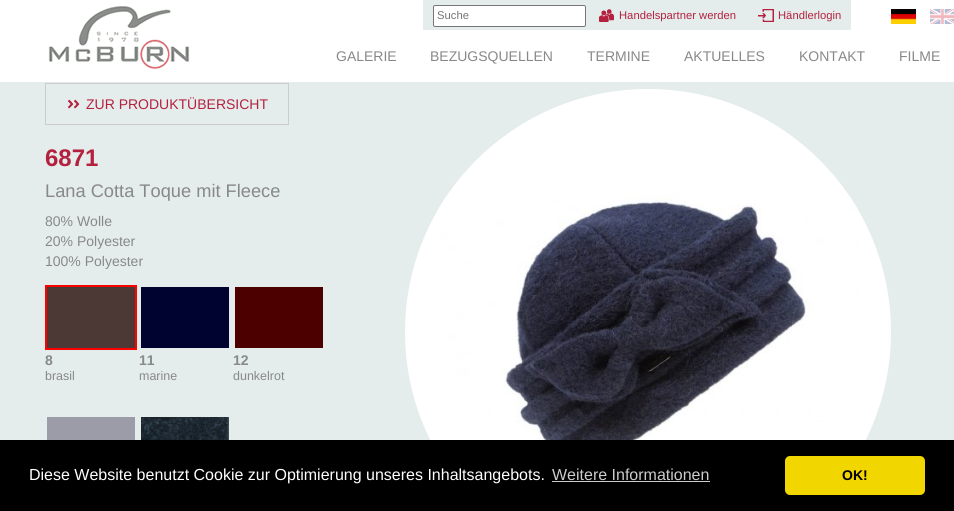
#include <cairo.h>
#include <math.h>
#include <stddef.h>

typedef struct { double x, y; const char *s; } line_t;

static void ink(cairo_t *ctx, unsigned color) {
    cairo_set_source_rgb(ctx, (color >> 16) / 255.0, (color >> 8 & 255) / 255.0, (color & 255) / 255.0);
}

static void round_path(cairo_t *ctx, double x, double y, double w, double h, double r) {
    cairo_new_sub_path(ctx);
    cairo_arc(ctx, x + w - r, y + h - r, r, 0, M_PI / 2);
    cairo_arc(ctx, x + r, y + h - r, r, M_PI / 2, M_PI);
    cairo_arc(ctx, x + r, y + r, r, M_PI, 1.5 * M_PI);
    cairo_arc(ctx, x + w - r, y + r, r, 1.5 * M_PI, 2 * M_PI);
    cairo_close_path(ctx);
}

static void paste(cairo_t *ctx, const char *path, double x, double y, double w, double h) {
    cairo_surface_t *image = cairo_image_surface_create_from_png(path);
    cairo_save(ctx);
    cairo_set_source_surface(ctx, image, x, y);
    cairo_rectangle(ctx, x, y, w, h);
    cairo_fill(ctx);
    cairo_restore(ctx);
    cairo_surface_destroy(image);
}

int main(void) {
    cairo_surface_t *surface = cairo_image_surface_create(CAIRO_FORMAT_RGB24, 954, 511);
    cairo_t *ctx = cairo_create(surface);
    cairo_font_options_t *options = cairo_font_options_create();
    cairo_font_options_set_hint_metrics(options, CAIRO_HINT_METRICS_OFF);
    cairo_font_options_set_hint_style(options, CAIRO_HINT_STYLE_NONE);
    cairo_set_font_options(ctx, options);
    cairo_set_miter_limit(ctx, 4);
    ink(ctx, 0xFFFFFF);
    cairo_paint(ctx);
    paste(ctx, "media/1.png", 48, 6, 142, 64);
    ink(ctx, 0xE4EDEC);
    cairo_rectangle(ctx, 423, 0, 428, 30);
    cairo_fill(ctx);
    ink(ctx, 0xFFFFFF);
    round_path(ctx, 433.5, 5.5, 152, 21, 1.5);
    cairo_fill_preserve(ctx);
    ink(ctx, 0x767676);
    cairo_set_line_width(ctx, 1);
    cairo_stroke(ctx);
    cairo_select_font_face(ctx, "Liberation Sans", CAIRO_FONT_SLANT_NORMAL, CAIRO_FONT_WEIGHT_NORMAL);
    cairo_set_font_size(ctx, 11.25);
    ink(ctx, 0x757575);
    cairo_move_to(ctx, 437, 19);
    cairo_show_text(ctx, "Suche");
    paste(ctx, "media/2.png", 599, 9, 15, 13);
    ink(ctx, 0xB4213F);
    cairo_move_to(ctx, 619, 19);
    cairo_show_text(ctx, "Handelspartner werden");
    paste(ctx, "media/3.png", 758, 9, 16, 13);
    cairo_move_to(ctx, 778, 19);
    cairo_show_text(ctx, "Händlerlogin");
    paste(ctx, "media/4.png", 891, 9, 25, 15);
    paste(ctx, "media/5.png", 930, 9, 24, 15);
    cairo_set_font_size(ctx, 14);
    ink(ctx, 0x888888);
    {
        static const line_t items[] = {
            {336, 61, "GALERIE"},
            {430, 61, "BEZUGSQUELLEN"},
            {587, 61, "TERMINE"},
            {684, 61, "AKTUELLES"},
            {799, 61, "KONTAKT"},
            {899, 61, "FILME"},
        };
        for (size_t i = 0; i < sizeof items / sizeof *items; i++) {
            cairo_move_to(ctx, items[i].x, items[i].y);
            cairo_show_text(ctx, items[i].s);
        }
    }
    ink(ctx, 0xE4EDEC);
    cairo_rectangle(ctx, 0, 82, 954, 358);
    cairo_fill(ctx);
    paste(ctx, "media/6.png", 68, 99, 12, 10);
    cairo_rectangle(ctx, 45.5, 83.5, 243, 41);
    ink(ctx, 0xCCCCCC);
    cairo_stroke(ctx);
    ink(ctx, 0xB4213F);
    cairo_move_to(ctx, 86, 109);
    cairo_show_text(ctx, "ZUR PRODUKTÜBERSICHT");
    cairo_select_font_face(ctx, "Liberation Sans", CAIRO_FONT_SLANT_NORMAL, CAIRO_FONT_WEIGHT_BOLD);
    cairo_set_font_size(ctx, 24);
    cairo_move_to(ctx, 45, 166);
    cairo_show_text(ctx, "6871");
    cairo_select_font_face(ctx, "Liberation Sans", CAIRO_FONT_SLANT_NORMAL, CAIRO_FONT_WEIGHT_NORMAL);
    cairo_set_font_size(ctx, 18.25);
    ink(ctx, 0x888888);
    cairo_move_to(ctx, 45, 197);
    cairo_show_text(ctx, "Lana Cotta Toque mit Fleece");
    cairo_set_font_size(ctx, 14);
    {
        static const line_t items[] = {
            {45, 226, "80% Wolle"},
            {45, 246, "20% Polyester"},
            {45, 266, "100% Polyester"},
        };
        for (size_t i = 0; i < sizeof items / sizeof *items; i++) {
            cairo_move_to(ctx, items[i].x, items[i].y);
            cairo_show_text(ctx, items[i].s);
        }
    }
    cairo_rectangle(ctx, 46, 286, 90, 63);
    ink(ctx, 0xFF0000);
    cairo_set_line_width(ctx, 2);
    cairo_stroke(ctx);
    ink(ctx, 0x4C3935);
    cairo_rectangle(ctx, 47, 287, 88, 61);
    cairo_fill(ctx);
    cairo_select_font_face(ctx, "Liberation Sans", CAIRO_FONT_SLANT_NORMAL, CAIRO_FONT_WEIGHT_BOLD);
    ink(ctx, 0x888888);
    cairo_move_to(ctx, 45, 365);
    cairo_show_text(ctx, "8");
    cairo_select_font_face(ctx, "Liberation Sans", CAIRO_FONT_SLANT_NORMAL, CAIRO_FONT_WEIGHT_NORMAL);
    cairo_set_font_size(ctx, 12.5);
    cairo_move_to(ctx, 45, 380);
    cairo_show_text(ctx, "brasil");
    ink(ctx, 0x00022F);
    cairo_rectangle(ctx, 141, 287, 88, 61);
    cairo_fill(ctx);
    cairo_select_font_face(ctx, "Liberation Sans", CAIRO_FONT_SLANT_NORMAL, CAIRO_FONT_WEIGHT_BOLD);
    cairo_set_font_size(ctx, 14);
    ink(ctx, 0x888888);
    cairo_move_to(ctx, 139, 365);
    cairo_show_text(ctx, "11");
    cairo_select_font_face(ctx, "Liberation Sans", CAIRO_FONT_SLANT_NORMAL, CAIRO_FONT_WEIGHT_NORMAL);
    cairo_set_font_size(ctx, 12.5);
    cairo_move_to(ctx, 139, 380);
    cairo_show_text(ctx, "marine");
    ink(ctx, 0x4D0000);
    cairo_rectangle(ctx, 235, 287, 88, 61);
    cairo_fill(ctx);
    cairo_select_font_face(ctx, "Liberation Sans", CAIRO_FONT_SLANT_NORMAL, CAIRO_FONT_WEIGHT_BOLD);
    cairo_set_font_size(ctx, 14);
    ink(ctx, 0x888888);
    cairo_move_to(ctx, 233, 365);
    cairo_show_text(ctx, "12");
    cairo_select_font_face(ctx, "Liberation Sans", CAIRO_FONT_SLANT_NORMAL, CAIRO_FONT_WEIGHT_NORMAL);
    cairo_set_font_size(ctx, 12.5);
    cairo_move_to(ctx, 233, 380);
    cairo_show_text(ctx, "dunkelrot");
    ink(ctx, 0x9C9CA8);
    cairo_rectangle(ctx, 47, 417, 88, 23);
    cairo_fill(ctx);
    paste(ctx, "media/7.png", 141, 417, 88, 23);
    ink(ctx, 0xFFFFFF);
    cairo_arc(ctx, 648, 332, 246.5, 0, 2 * M_PI);
    cairo_fill_preserve(ctx);
    ink(ctx, 0xE4EDEC);
    cairo_set_line_width(ctx, 7);
    cairo_stroke(ctx);
    paste(ctx, "media/8.png", 435, 193, 426, 247);
    ink(ctx, 0x000000);
    cairo_rectangle(ctx, 0, 440, 954, 71);
    cairo_fill(ctx);
    cairo_set_font_size(ctx, 16);
    ink(ctx, 0xFFFFFF);
    cairo_move_to(ctx, 29, 480);
    cairo_show_text(ctx, "Diese Website benutzt Cookie zur Optimierung unseres Inhaltsangebots.");
    ink(ctx, 0xCCCCCC);
    cairo_move_to(ctx, 552, 480);
    cairo_show_text(ctx, "Weitere Informationen");
    cairo_rectangle(ctx, 552, 481, 158, 1);
    cairo_fill(ctx);
    ink(ctx, 0xF1D600);
    round_path(ctx, 785, 456, 140, 39, 5);
    cairo_fill(ctx);
    cairo_select_font_face(ctx, "Liberation Sans", CAIRO_FONT_SLANT_NORMAL, CAIRO_FONT_WEIGHT_BOLD);
    cairo_set_font_size(ctx, 14);
    ink(ctx, 0x000000);
    cairo_move_to(ctx, 842, 480);
    cairo_show_text(ctx, "OK!");
    cairo_surface_write_to_png(surface, "image.png");
    cairo_font_options_destroy(options);
    cairo_destroy(ctx);
    cairo_surface_destroy(surface);
    return 0;
}
